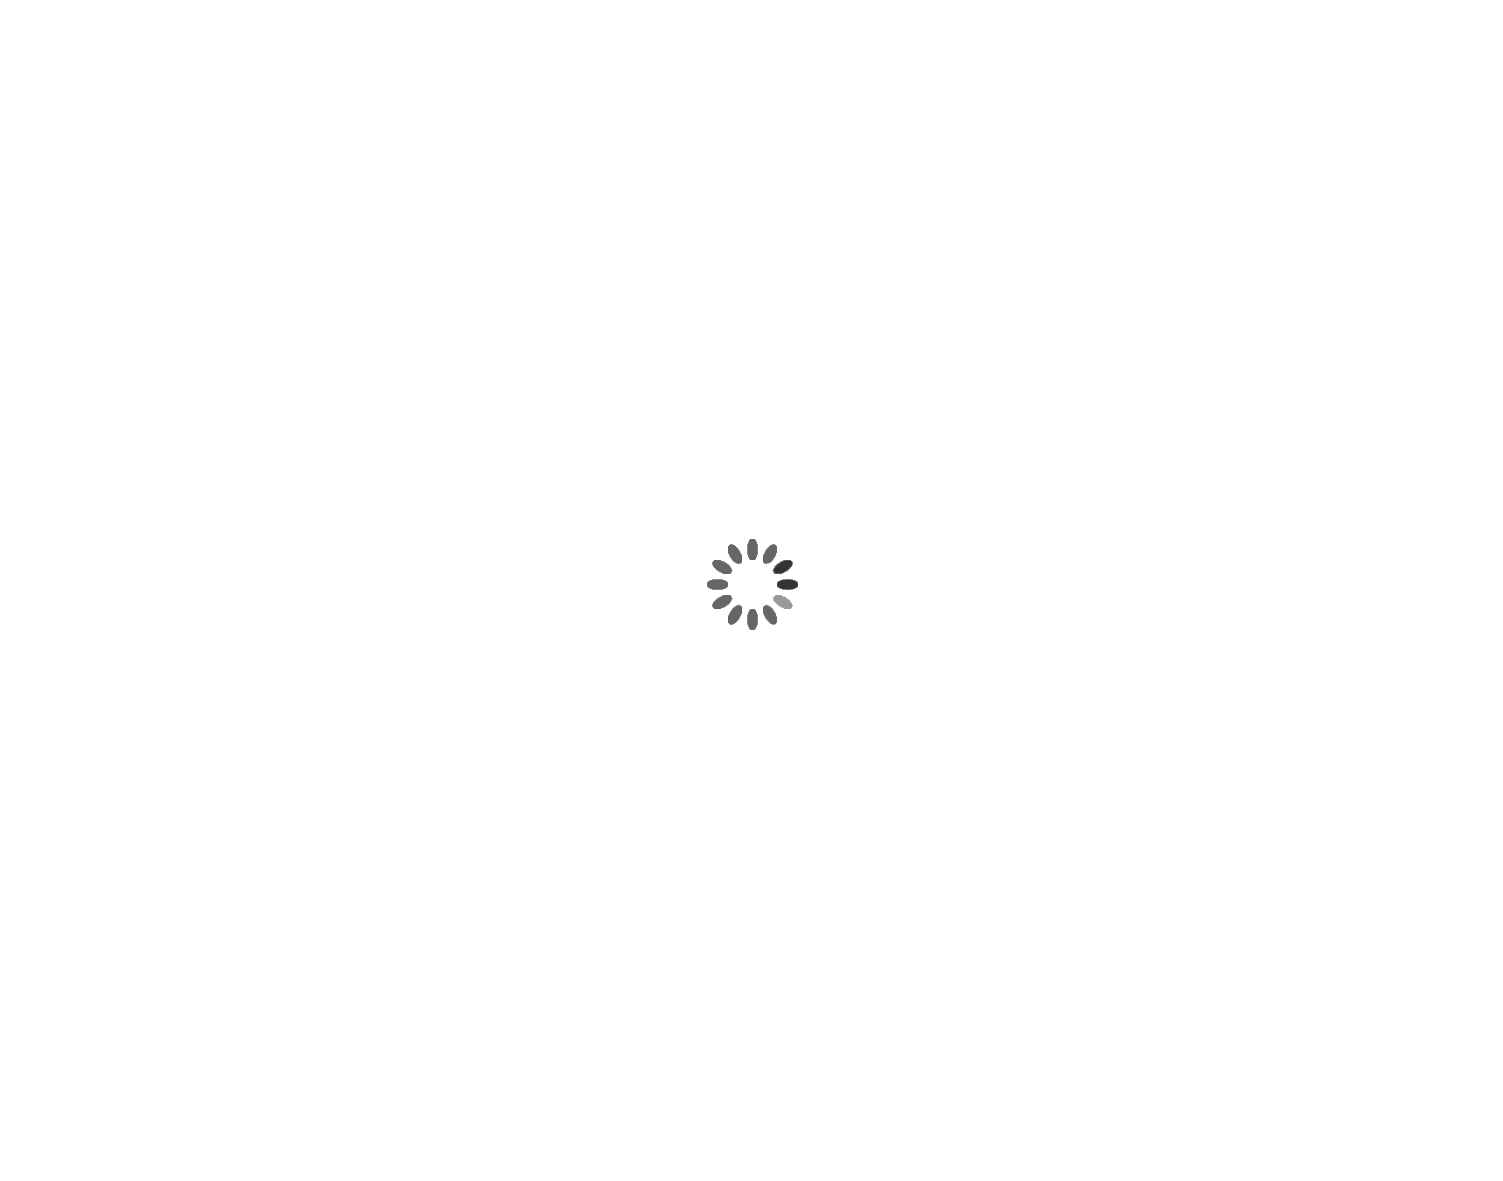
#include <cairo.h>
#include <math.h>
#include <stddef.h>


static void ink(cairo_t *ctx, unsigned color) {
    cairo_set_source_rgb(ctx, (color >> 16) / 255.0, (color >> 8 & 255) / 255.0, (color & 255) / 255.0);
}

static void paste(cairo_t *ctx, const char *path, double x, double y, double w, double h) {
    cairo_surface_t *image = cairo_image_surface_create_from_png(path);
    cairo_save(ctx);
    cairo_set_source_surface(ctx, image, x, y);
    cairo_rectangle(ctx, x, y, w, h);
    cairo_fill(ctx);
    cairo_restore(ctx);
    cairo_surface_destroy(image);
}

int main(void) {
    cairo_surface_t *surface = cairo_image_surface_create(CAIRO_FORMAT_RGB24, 1503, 1181);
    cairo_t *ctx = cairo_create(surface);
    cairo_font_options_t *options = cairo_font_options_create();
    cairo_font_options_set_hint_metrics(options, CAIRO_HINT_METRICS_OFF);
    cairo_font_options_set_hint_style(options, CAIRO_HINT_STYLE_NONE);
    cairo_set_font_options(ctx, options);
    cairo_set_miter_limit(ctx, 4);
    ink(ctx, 0xFFFFFF);
    cairo_paint(ctx);
    paste(ctx, "media/1.png", 707, 539, 91, 91);
    cairo_surface_write_to_png(surface, "image.png");
    cairo_font_options_destroy(options);
    cairo_destroy(ctx);
    cairo_surface_destroy(surface);
    return 0;
}
